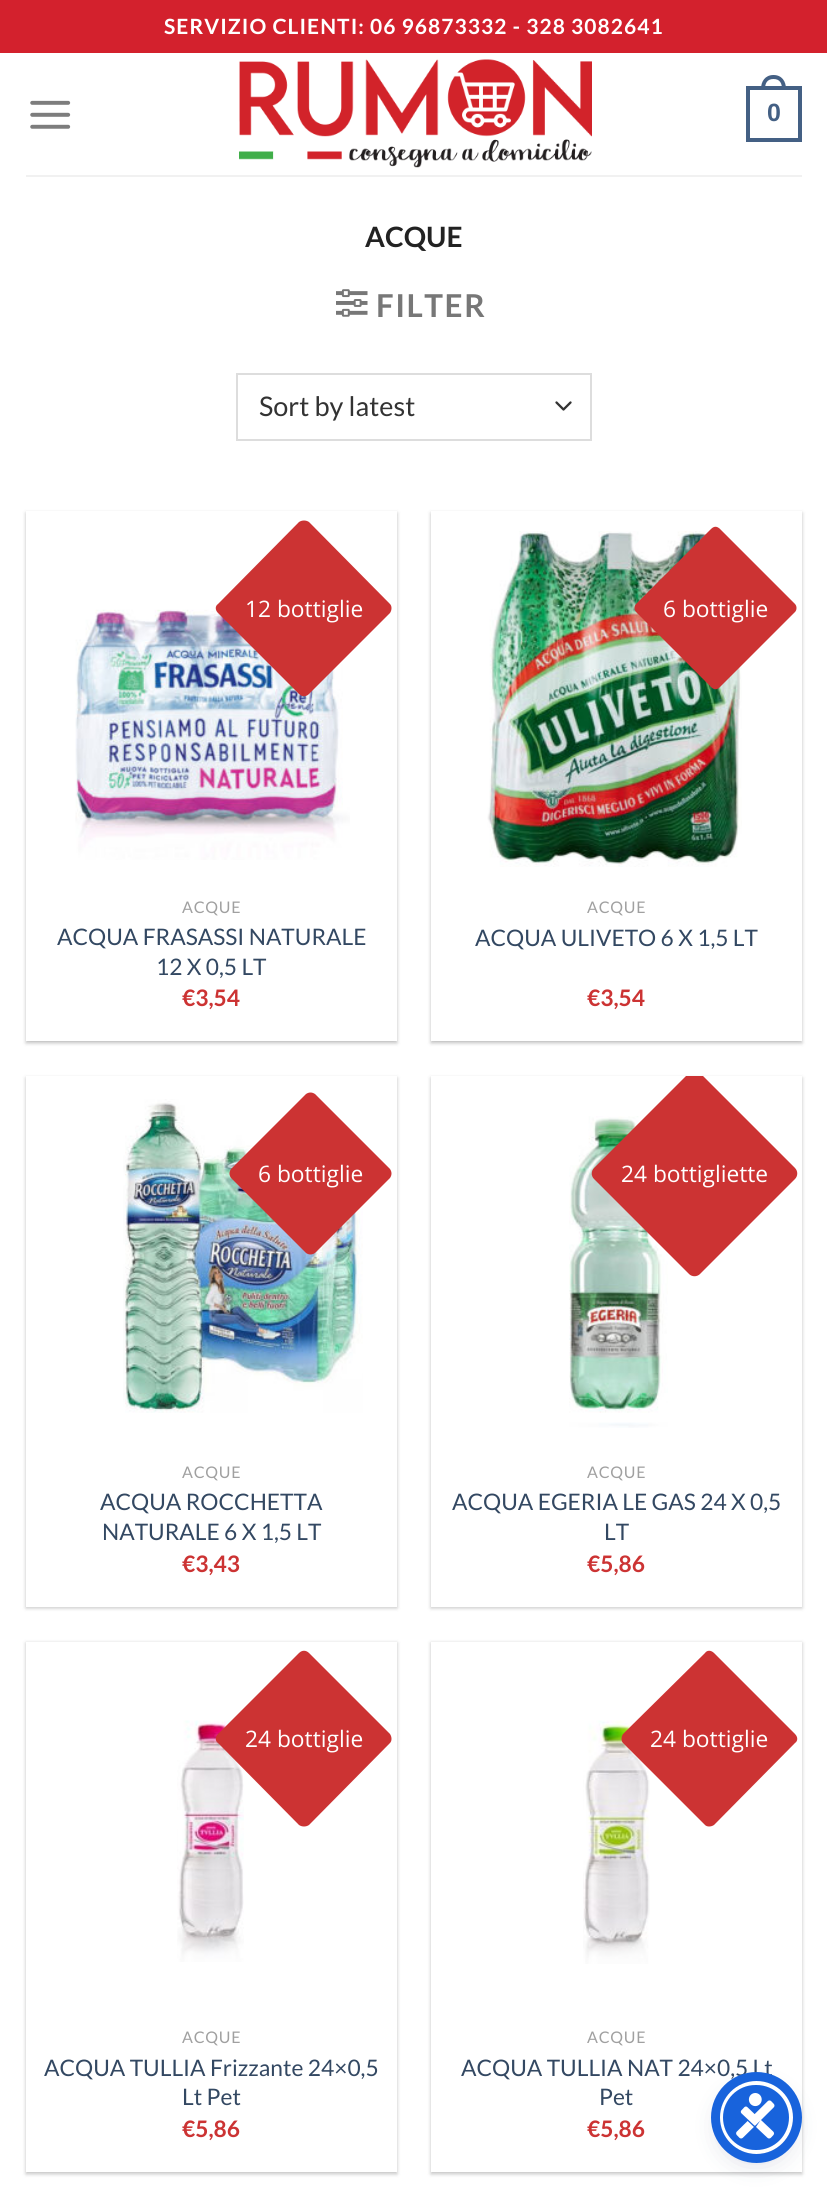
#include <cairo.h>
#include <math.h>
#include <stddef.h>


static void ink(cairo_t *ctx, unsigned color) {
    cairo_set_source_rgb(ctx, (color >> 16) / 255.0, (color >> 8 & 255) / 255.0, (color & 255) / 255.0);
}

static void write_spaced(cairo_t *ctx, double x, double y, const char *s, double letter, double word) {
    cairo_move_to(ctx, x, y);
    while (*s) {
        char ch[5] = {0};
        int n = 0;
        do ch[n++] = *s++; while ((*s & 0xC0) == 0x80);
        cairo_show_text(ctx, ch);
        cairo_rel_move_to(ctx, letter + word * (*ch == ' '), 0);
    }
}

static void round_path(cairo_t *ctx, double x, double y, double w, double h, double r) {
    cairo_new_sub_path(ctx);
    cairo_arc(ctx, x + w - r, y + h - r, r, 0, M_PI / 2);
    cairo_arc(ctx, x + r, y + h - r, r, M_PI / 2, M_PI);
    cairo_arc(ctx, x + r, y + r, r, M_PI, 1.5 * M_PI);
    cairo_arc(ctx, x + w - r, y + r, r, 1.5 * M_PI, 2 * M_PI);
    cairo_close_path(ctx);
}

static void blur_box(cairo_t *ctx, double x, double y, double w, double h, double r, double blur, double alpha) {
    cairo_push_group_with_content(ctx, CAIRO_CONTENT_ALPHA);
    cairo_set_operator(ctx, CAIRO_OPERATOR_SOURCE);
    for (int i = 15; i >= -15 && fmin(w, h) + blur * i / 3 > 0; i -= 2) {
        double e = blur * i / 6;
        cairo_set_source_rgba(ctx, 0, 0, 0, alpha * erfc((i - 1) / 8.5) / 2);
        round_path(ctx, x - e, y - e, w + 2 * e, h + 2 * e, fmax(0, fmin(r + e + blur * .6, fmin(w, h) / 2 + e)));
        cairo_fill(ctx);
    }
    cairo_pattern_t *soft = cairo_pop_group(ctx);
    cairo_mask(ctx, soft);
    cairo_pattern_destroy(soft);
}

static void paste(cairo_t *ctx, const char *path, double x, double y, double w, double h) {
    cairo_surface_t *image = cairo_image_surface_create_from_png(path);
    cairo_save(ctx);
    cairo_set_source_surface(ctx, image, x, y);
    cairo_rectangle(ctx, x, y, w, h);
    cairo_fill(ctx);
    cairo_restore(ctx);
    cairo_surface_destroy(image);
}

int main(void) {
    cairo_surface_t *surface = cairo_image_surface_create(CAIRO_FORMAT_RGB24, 827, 2189);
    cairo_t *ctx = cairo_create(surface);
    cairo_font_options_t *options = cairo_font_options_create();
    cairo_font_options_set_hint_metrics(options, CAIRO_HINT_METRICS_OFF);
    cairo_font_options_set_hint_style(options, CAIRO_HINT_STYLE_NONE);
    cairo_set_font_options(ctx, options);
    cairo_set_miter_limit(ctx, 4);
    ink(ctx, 0xFFFFFF);
    cairo_paint(ctx);
    ink(ctx, 0xD3212D);
    cairo_rectangle(ctx, 0, 0, 827, 53);
    cairo_fill(ctx);
    cairo_select_font_face(ctx, "Lato", CAIRO_FONT_SLANT_NORMAL, CAIRO_FONT_WEIGHT_BOLD);
    cairo_set_font_size(ctx, 21);
    ink(ctx, 0xFFFFFF);
    write_spaced(ctx, 164, 34, "SERVIZIO CLIENTI: 06 96873332 - 328 3082641", 1.05, 0);
    paste(ctx, "media/1.png", 30, 100, 41, 29);
    paste(ctx, "media/2.png", 239, 59, 353, 109);
    cairo_rectangle(ctx, 748, 88, 52, 52);
    ink(ctx, 0x446084);
    cairo_set_line_width(ctx, 4);
    cairo_stroke(ctx);
    cairo_set_fill_rule(ctx, CAIRO_FILL_RULE_EVEN_ODD);
    cairo_new_path(ctx);
    cairo_move_to(ctx, 773.5, 75);
    cairo_curve_to(ctx, 782, 75, 786, 81.5, 786, 89);
    cairo_line_to(ctx, 761, 89);
    cairo_curve_to(ctx, 761, 81.5, 765, 75, 773.5, 75);
    cairo_close_path(ctx);
    cairo_move_to(ctx, 773.5, 79);
    cairo_curve_to(ctx, 780, 79, 782, 83.5, 782, 89);
    cairo_line_to(ctx, 765, 89);
    cairo_curve_to(ctx, 765, 83.5, 767, 79, 773.5, 79);
    cairo_close_path(ctx);
    cairo_fill(ctx);
    cairo_select_font_face(ctx, "Liberation Sans", CAIRO_FONT_SLANT_NORMAL, CAIRO_FONT_WEIGHT_BOLD);
    cairo_set_font_size(ctx, 25);
    cairo_move_to(ctx, 767, 121);
    cairo_show_text(ctx, "0");
    ink(ctx, 0xF1F1F1);
    cairo_rectangle(ctx, 26, 175, 776, 2);
    cairo_fill(ctx);
    cairo_select_font_face(ctx, "Lato", CAIRO_FONT_SLANT_NORMAL, CAIRO_FONT_WEIGHT_BOLD);
    cairo_set_font_size(ctx, 28);
    ink(ctx, 0x222222);
    cairo_move_to(ctx, 365, 247);
    cairo_show_text(ctx, "ACQUE");
    paste(ctx, "media/3.png", 336, 289, 32, 28);
    cairo_set_font_size(ctx, 31.5);
    ink(ctx, 0x777777);
    write_spaced(ctx, 376, 317, "FILTER", 1.5, 0);
    cairo_new_path(ctx);
    cairo_move_to(ctx, 556.5, 402.5);
    cairo_line_to(ctx, 563.5, 409.5);
    cairo_line_to(ctx, 570.5, 402.5);
    ink(ctx, 0x333333);
    cairo_set_line_width(ctx, 2.3);
    cairo_set_line_cap(ctx, CAIRO_LINE_CAP_ROUND);
    cairo_set_line_join(ctx, CAIRO_LINE_JOIN_ROUND);
    cairo_stroke(ctx);
    cairo_rectangle(ctx, 237, 374, 354, 66);
    ink(ctx, 0xDDDDDD);
    cairo_set_line_width(ctx, 2);
    cairo_set_line_cap(ctx, CAIRO_LINE_CAP_BUTT);
    cairo_set_line_join(ctx, CAIRO_LINE_JOIN_MITER);
    cairo_stroke(ctx);
    cairo_select_font_face(ctx, "Lato", CAIRO_FONT_SLANT_NORMAL, CAIRO_FONT_WEIGHT_NORMAL);
    cairo_set_font_size(ctx, 27);
    ink(ctx, 0x333333);
    cairo_move_to(ctx, 259, 416);
    cairo_show_text(ctx, "Sort by latest");
    ink(ctx, 0x000000);
    blur_box(ctx, 26, 513, 371, 530, 0, 2, 0.24);
    blur_box(ctx, 30, 516, 364, 524, 0, 2.5, 0.12);
    ink(ctx, 0xFFFFFF);
    cairo_rectangle(ctx, 26, 511, 371, 530);
    cairo_fill(ctx);
    paste(ctx, "media/4.png", 75, 608, 275, 252);
    ink(ctx, 0xCC3333);
    cairo_set_fill_rule(ctx, CAIRO_FILL_RULE_WINDING);
    cairo_new_path(ctx);
    cairo_move_to(ctx, 309, 522);
    cairo_line_to(ctx, 390, 604);
    cairo_curve_to(ctx, 392, 606, 392, 610, 390, 613);
    cairo_line_to(ctx, 309, 694);
    cairo_curve_to(ctx, 306, 697, 302, 697, 299, 694);
    cairo_line_to(ctx, 218, 613);
    cairo_curve_to(ctx, 215, 610, 215, 606, 218, 604);
    cairo_line_to(ctx, 299, 522);
    cairo_curve_to(ctx, 302, 520, 306, 520, 309, 522);
    cairo_close_path(ctx);
    cairo_fill(ctx);
    cairo_select_font_face(ctx, "Open Sans", CAIRO_FONT_SLANT_NORMAL, CAIRO_FONT_WEIGHT_NORMAL);
    cairo_set_font_size(ctx, 22.75);
    ink(ctx, 0xFFFFFF);
    cairo_move_to(ctx, 245, 617);
    cairo_show_text(ctx, "12 bottiglie");
    cairo_select_font_face(ctx, "Lato", CAIRO_FONT_SLANT_NORMAL, CAIRO_FONT_WEIGHT_NORMAL);
    cairo_set_font_size(ctx, 16);
    ink(ctx, 0xA0A0A0);
    write_spaced(ctx, 182, 913, "ACQUE", 0.75, 0);
    cairo_set_font_size(ctx, 22.75);
    ink(ctx, 0x334862);
    cairo_move_to(ctx, 57, 945);
    cairo_show_text(ctx, "ACQUA FRASASSI NATURALE");
    cairo_move_to(ctx, 156, 975);
    cairo_show_text(ctx, "12 X 0,5 LT");
    cairo_select_font_face(ctx, "Lato", CAIRO_FONT_SLANT_NORMAL, CAIRO_FONT_WEIGHT_BOLD);
    ink(ctx, 0xCC3333);
    cairo_move_to(ctx, 182, 1006);
    cairo_show_text(ctx, "€3,54");
    ink(ctx, 0x000000);
    blur_box(ctx, 431, 513, 371, 530, 0, 2, 0.24);
    blur_box(ctx, 434, 516, 364, 524, 0, 2.5, 0.12);
    ink(ctx, 0xFFFFFF);
    cairo_rectangle(ctx, 431, 511, 371, 530);
    cairo_fill(ctx);
    paste(ctx, "media/5.png", 487, 531, 255, 336);
    ink(ctx, 0xCC3333);
    cairo_new_path(ctx);
    cairo_move_to(ctx, 720, 529);
    cairo_line_to(ctx, 795, 604);
    cairo_curve_to(ctx, 797, 606, 797, 610, 795, 612);
    cairo_line_to(ctx, 720, 687);
    cairo_curve_to(ctx, 717, 690, 714, 690, 711, 687);
    cairo_line_to(ctx, 636, 612);
    cairo_curve_to(ctx, 634, 610, 634, 606, 636, 604);
    cairo_line_to(ctx, 711, 529);
    cairo_curve_to(ctx, 714, 526, 717, 526, 720, 529);
    cairo_close_path(ctx);
    cairo_fill(ctx);
    cairo_select_font_face(ctx, "Open Sans", CAIRO_FONT_SLANT_NORMAL, CAIRO_FONT_WEIGHT_NORMAL);
    ink(ctx, 0xFFFFFF);
    cairo_move_to(ctx, 663, 617);
    cairo_show_text(ctx, "6 bottiglie");
    cairo_select_font_face(ctx, "Lato", CAIRO_FONT_SLANT_NORMAL, CAIRO_FONT_WEIGHT_NORMAL);
    cairo_set_font_size(ctx, 16);
    ink(ctx, 0xA0A0A0);
    write_spaced(ctx, 587, 913, "ACQUE", 0.75, 0);
    cairo_set_font_size(ctx, 22.75);
    ink(ctx, 0x334862);
    cairo_move_to(ctx, 475, 946);
    cairo_show_text(ctx, "ACQUA ULIVETO 6 X 1,5 LT");
    cairo_select_font_face(ctx, "Lato", CAIRO_FONT_SLANT_NORMAL, CAIRO_FONT_WEIGHT_BOLD);
    ink(ctx, 0xCC3333);
    cairo_move_to(ctx, 587, 1006);
    cairo_show_text(ctx, "€3,54");
    ink(ctx, 0x000000);
    blur_box(ctx, 26, 1078, 371, 530, 0, 2, 0.24);
    ink(ctx, 0xFFFFFF);
    cairo_rectangle(ctx, 26, 1076, 371, 531);
    cairo_fill(ctx);
    paste(ctx, "media/6.png", 123, 1099, 240, 314);
    ink(ctx, 0xCC3333);
    cairo_new_path(ctx);
    cairo_move_to(ctx, 315, 1094);
    cairo_line_to(ctx, 390, 1169);
    cairo_curve_to(ctx, 392, 1172, 392, 1175, 390, 1178);
    cairo_line_to(ctx, 315, 1253);
    cairo_curve_to(ctx, 312, 1255, 309, 1255, 306, 1253);
    cairo_line_to(ctx, 231, 1178);
    cairo_curve_to(ctx, 229, 1175, 229, 1172, 231, 1169);
    cairo_line_to(ctx, 306, 1094);
    cairo_curve_to(ctx, 309, 1092, 312, 1092, 315, 1094);
    cairo_close_path(ctx);
    cairo_fill(ctx);
    cairo_select_font_face(ctx, "Open Sans", CAIRO_FONT_SLANT_NORMAL, CAIRO_FONT_WEIGHT_NORMAL);
    ink(ctx, 0xFFFFFF);
    cairo_move_to(ctx, 258, 1182);
    cairo_show_text(ctx, "6 bottiglie");
    cairo_select_font_face(ctx, "Lato", CAIRO_FONT_SLANT_NORMAL, CAIRO_FONT_WEIGHT_NORMAL);
    cairo_set_font_size(ctx, 16);
    ink(ctx, 0xA0A0A0);
    write_spaced(ctx, 182, 1478, "ACQUE", 0.75, 0);
    cairo_set_font_size(ctx, 22.75);
    ink(ctx, 0x334862);
    cairo_move_to(ctx, 100, 1510);
    cairo_show_text(ctx, "ACQUA ROCCHETTA");
    cairo_move_to(ctx, 102, 1540);
    cairo_show_text(ctx, "NATURALE 6 X 1,5 LT");
    cairo_select_font_face(ctx, "Lato", CAIRO_FONT_SLANT_NORMAL, CAIRO_FONT_WEIGHT_BOLD);
    ink(ctx, 0xCC3333);
    cairo_move_to(ctx, 182, 1572);
    cairo_show_text(ctx, "€3,43");
    ink(ctx, 0x000000);
    blur_box(ctx, 431, 1078, 371, 530, 0, 2, 0.24);
    ink(ctx, 0xFFFFFF);
    cairo_rectangle(ctx, 431, 1076, 371, 531);
    cairo_fill(ctx);
    paste(ctx, "media/7.png", 569, 1116, 99, 312);
    cairo_save(ctx);
    cairo_rectangle(ctx, 431, 1076, 371, 371);
    cairo_clip(ctx);
    ink(ctx, 0xCC3333);
    cairo_new_path(ctx);
    cairo_move_to(ctx, 700, 1073);
    cairo_line_to(ctx, 795, 1168);
    cairo_curve_to(ctx, 798, 1171, 798, 1176, 795, 1179);
    cairo_line_to(ctx, 700, 1274);
    cairo_curve_to(ctx, 697, 1277, 692, 1277, 689, 1274);
    cairo_line_to(ctx, 594, 1179);
    cairo_curve_to(ctx, 591, 1176, 591, 1171, 594, 1168);
    cairo_line_to(ctx, 689, 1073);
    cairo_curve_to(ctx, 692, 1070, 697, 1070, 700, 1073);
    cairo_close_path(ctx);
    cairo_fill(ctx);
    cairo_restore(ctx);
    cairo_select_font_face(ctx, "Open Sans", CAIRO_FONT_SLANT_NORMAL, CAIRO_FONT_WEIGHT_NORMAL);
    cairo_move_to(ctx, 621, 1182);
    cairo_show_text(ctx, "24 bottigliette");
    cairo_select_font_face(ctx, "Lato", CAIRO_FONT_SLANT_NORMAL, CAIRO_FONT_WEIGHT_NORMAL);
    cairo_set_font_size(ctx, 16);
    ink(ctx, 0xA0A0A0);
    write_spaced(ctx, 587, 1478, "ACQUE", 0.75, 0);
    cairo_set_font_size(ctx, 22.75);
    ink(ctx, 0x334862);
    cairo_move_to(ctx, 452, 1510);
    cairo_show_text(ctx, "ACQUA EGERIA LE GAS 24 X 0,5");
    cairo_move_to(ctx, 604, 1540);
    cairo_show_text(ctx, "LT");
    cairo_select_font_face(ctx, "Lato", CAIRO_FONT_SLANT_NORMAL, CAIRO_FONT_WEIGHT_BOLD);
    ink(ctx, 0xCC3333);
    cairo_move_to(ctx, 587, 1572);
    cairo_show_text(ctx, "€5,86");
    ink(ctx, 0x000000);
    blur_box(ctx, 26, 1643, 371, 531, 0, 2, 0.24);
    ink(ctx, 0xFFFFFF);
    cairo_rectangle(ctx, 26, 1642, 371, 530);
    cairo_fill(ctx);
    paste(ctx, "media/8.png", 177, 1720, 67, 242);
    ink(ctx, 0xCC3333);
    cairo_new_path(ctx);
    cairo_move_to(ctx, 309, 1653);
    cairo_line_to(ctx, 390, 1734);
    cairo_curve_to(ctx, 392, 1737, 392, 1741, 390, 1743);
    cairo_line_to(ctx, 309, 1825);
    cairo_curve_to(ctx, 306, 1827, 302, 1827, 299, 1825);
    cairo_line_to(ctx, 218, 1743);
    cairo_curve_to(ctx, 215, 1741, 215, 1737, 218, 1734);
    cairo_line_to(ctx, 299, 1653);
    cairo_curve_to(ctx, 302, 1650, 306, 1650, 309, 1653);
    cairo_close_path(ctx);
    cairo_fill(ctx);
    cairo_select_font_face(ctx, "Open Sans", CAIRO_FONT_SLANT_NORMAL, CAIRO_FONT_WEIGHT_NORMAL);
    ink(ctx, 0xFFFFFF);
    cairo_move_to(ctx, 245, 1747);
    cairo_show_text(ctx, "24 bottiglie");
    cairo_select_font_face(ctx, "Lato", CAIRO_FONT_SLANT_NORMAL, CAIRO_FONT_WEIGHT_NORMAL);
    cairo_set_font_size(ctx, 16);
    ink(ctx, 0xA0A0A0);
    write_spaced(ctx, 182, 2043, "ACQUE", 0.75, 0);
    cairo_set_font_size(ctx, 22.75);
    ink(ctx, 0x334862);
    cairo_move_to(ctx, 44, 2076);
    cairo_show_text(ctx, "ACQUA TULLIA Frizzante 24×0,5");
    cairo_move_to(ctx, 182, 2105);
    cairo_show_text(ctx, "Lt Pet");
    cairo_select_font_face(ctx, "Lato", CAIRO_FONT_SLANT_NORMAL, CAIRO_FONT_WEIGHT_BOLD);
    ink(ctx, 0xCC3333);
    cairo_move_to(ctx, 182, 2137);
    cairo_show_text(ctx, "€5,86");
    ink(ctx, 0x000000);
    blur_box(ctx, 431, 1643, 371, 531, 0, 2, 0.24);
    ink(ctx, 0xFFFFFF);
    cairo_rectangle(ctx, 431, 1642, 371, 530);
    cairo_fill(ctx);
    paste(ctx, "media/9.png", 583, 1720, 67, 244);
    ink(ctx, 0xCC3333);
    cairo_new_path(ctx);
    cairo_move_to(ctx, 714, 1653);
    cairo_line_to(ctx, 795, 1734);
    cairo_curve_to(ctx, 798, 1737, 798, 1741, 795, 1743);
    cairo_line_to(ctx, 714, 1825);
    cairo_curve_to(ctx, 711, 1827, 707, 1827, 705, 1825);
    cairo_line_to(ctx, 623, 1743);
    cairo_curve_to(ctx, 621, 1741, 621, 1737, 623, 1734);
    cairo_line_to(ctx, 705, 1653);
    cairo_curve_to(ctx, 707, 1650, 711, 1650, 714, 1653);
    cairo_close_path(ctx);
    cairo_fill(ctx);
    cairo_select_font_face(ctx, "Open Sans", CAIRO_FONT_SLANT_NORMAL, CAIRO_FONT_WEIGHT_NORMAL);
    ink(ctx, 0xFFFFFF);
    cairo_move_to(ctx, 650, 1747);
    cairo_show_text(ctx, "24 bottiglie");
    cairo_select_font_face(ctx, "Lato", CAIRO_FONT_SLANT_NORMAL, CAIRO_FONT_WEIGHT_NORMAL);
    cairo_set_font_size(ctx, 16);
    ink(ctx, 0xA0A0A0);
    write_spaced(ctx, 587, 2043, "ACQUE", 0.75, 0);
    cairo_set_font_size(ctx, 22.75);
    ink(ctx, 0x334862);
    cairo_move_to(ctx, 461, 2076);
    cairo_show_text(ctx, "ACQUA TULLIA NAT 24×0,5 Lt");
    cairo_move_to(ctx, 599, 2105);
    cairo_show_text(ctx, "Pet");
    cairo_select_font_face(ctx, "Lato", CAIRO_FONT_SLANT_NORMAL, CAIRO_FONT_WEIGHT_BOLD);
    ink(ctx, 0xCC3333);
    cairo_move_to(ctx, 587, 2137);
    cairo_show_text(ctx, "€5,86");
    ink(ctx, 0x5D6494);
    blur_box(ctx, 719, 2084, 74, 74, 37, 3.5, 0.2);
    ink(ctx, 0x252C61);
    blur_box(ctx, 719, 2090, 74, 73, 36.5, 13, 0.15);
    ink(ctx, 0x1863DC);
    round_path(ctx, 721, 2083, 70, 69, 34.5);
    cairo_fill_preserve(ctx);
    ink(ctx, 0xFFFFFF);
    cairo_set_line_width(ctx, 4);
    cairo_stroke(ctx);
    cairo_arc(ctx, 756.5, 2117.5, 41, 0, 2 * M_PI);
    ink(ctx, 0x1863DC);
    cairo_set_line_width(ctx, 9);
    cairo_stroke(ctx);
    paste(ctx, "media/10.png", 736, 2093, 39, 46);
    cairo_surface_write_to_png(surface, "image.png");
    cairo_font_options_destroy(options);
    cairo_destroy(ctx);
    cairo_surface_destroy(surface);
    return 0;
}
